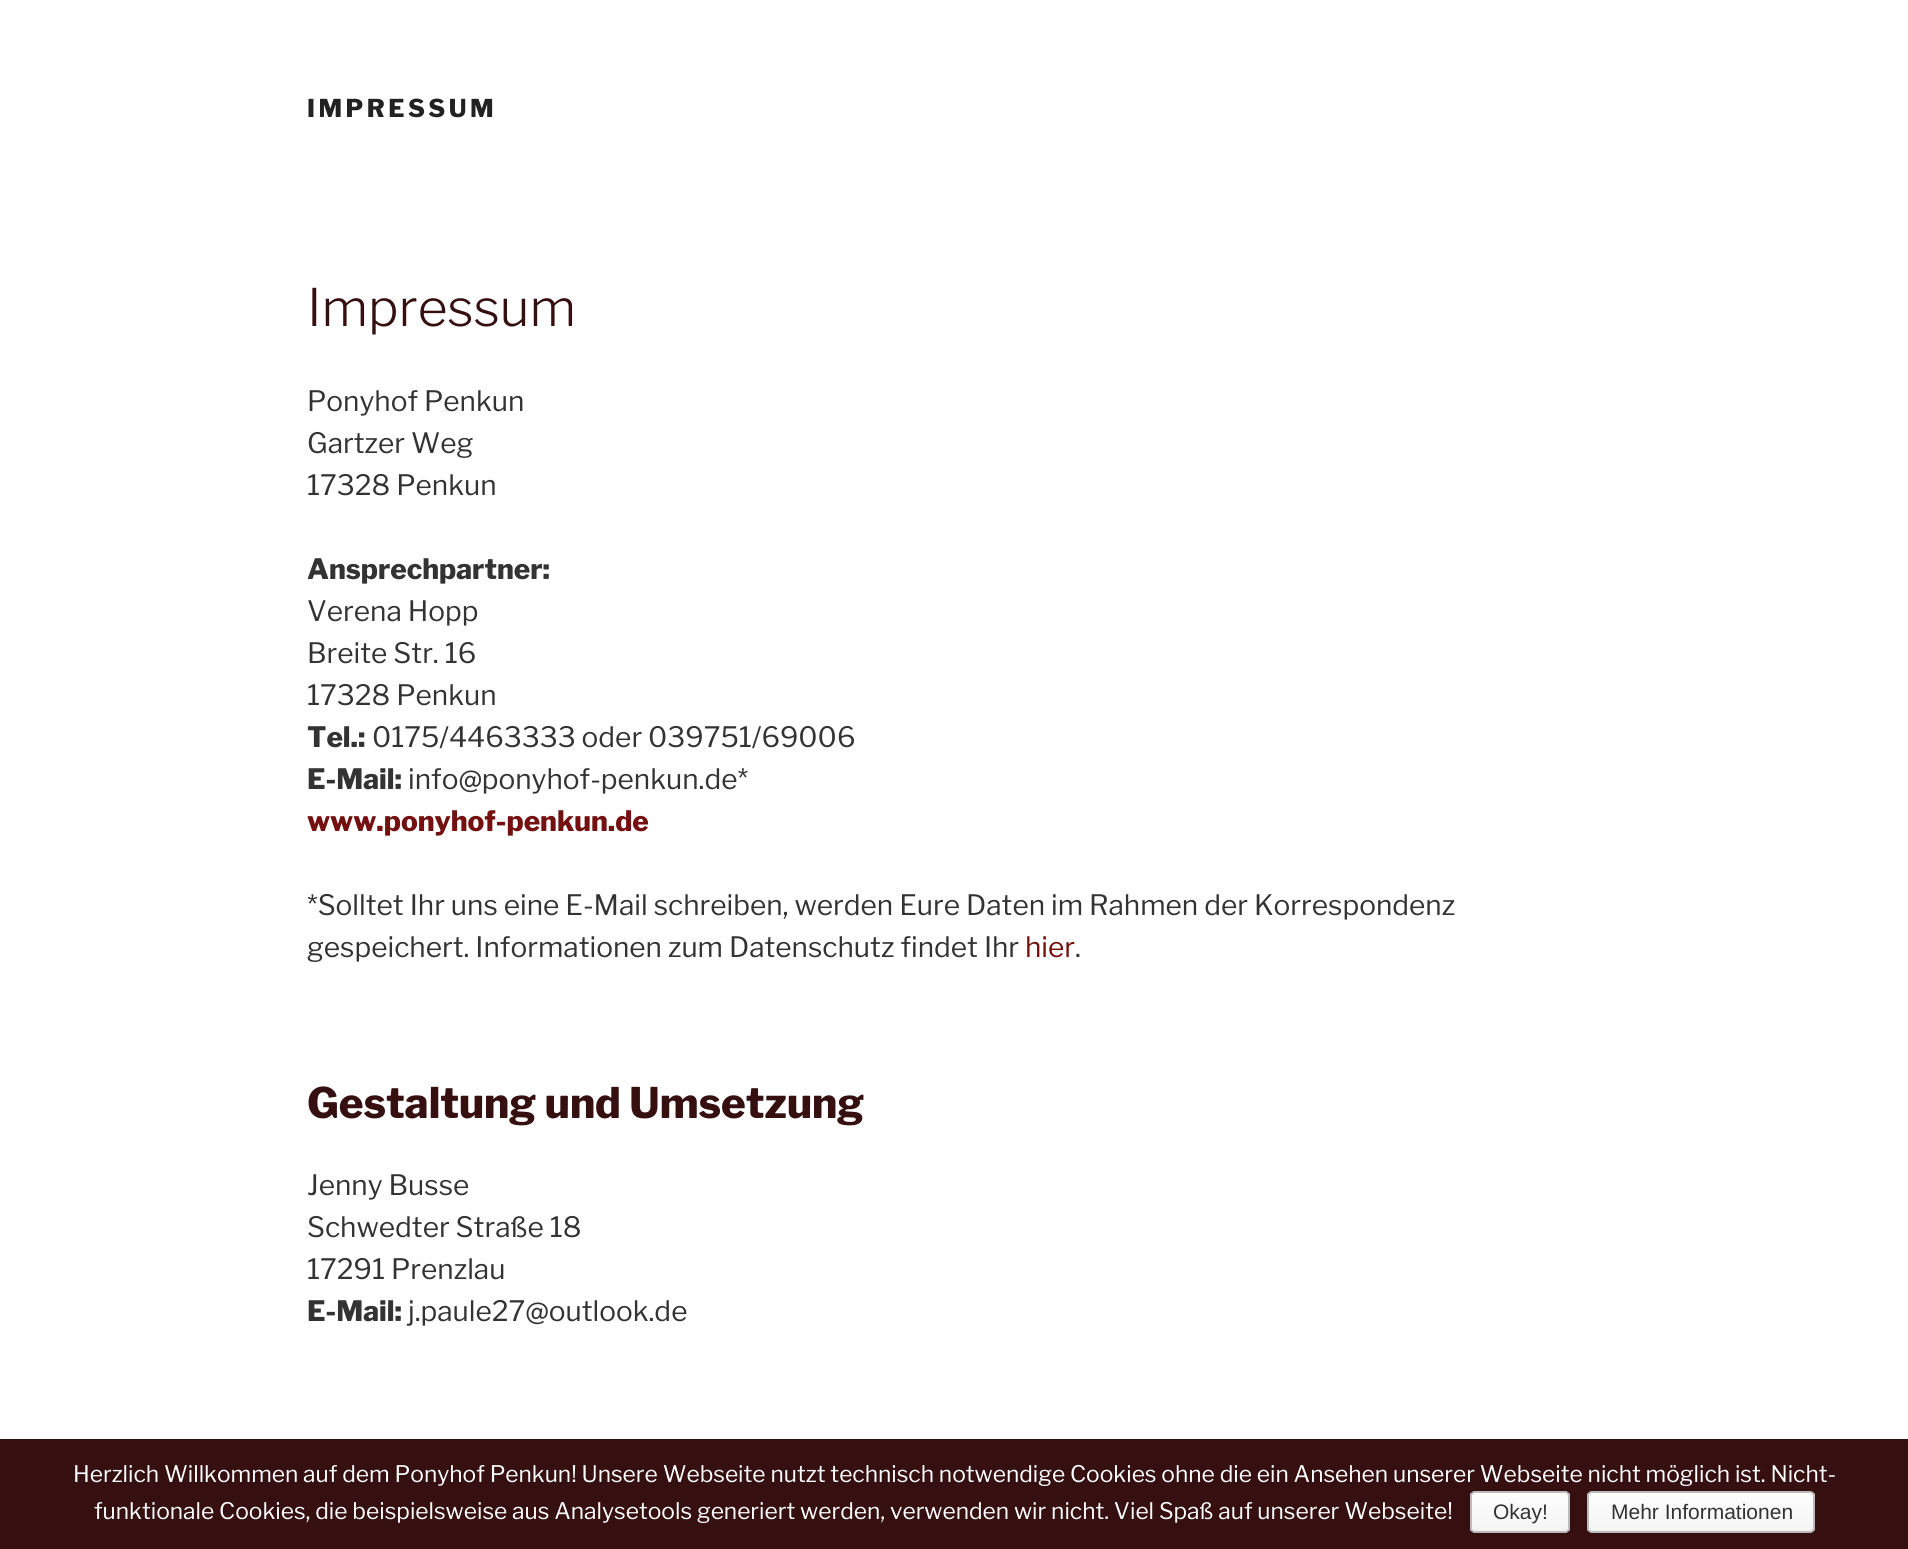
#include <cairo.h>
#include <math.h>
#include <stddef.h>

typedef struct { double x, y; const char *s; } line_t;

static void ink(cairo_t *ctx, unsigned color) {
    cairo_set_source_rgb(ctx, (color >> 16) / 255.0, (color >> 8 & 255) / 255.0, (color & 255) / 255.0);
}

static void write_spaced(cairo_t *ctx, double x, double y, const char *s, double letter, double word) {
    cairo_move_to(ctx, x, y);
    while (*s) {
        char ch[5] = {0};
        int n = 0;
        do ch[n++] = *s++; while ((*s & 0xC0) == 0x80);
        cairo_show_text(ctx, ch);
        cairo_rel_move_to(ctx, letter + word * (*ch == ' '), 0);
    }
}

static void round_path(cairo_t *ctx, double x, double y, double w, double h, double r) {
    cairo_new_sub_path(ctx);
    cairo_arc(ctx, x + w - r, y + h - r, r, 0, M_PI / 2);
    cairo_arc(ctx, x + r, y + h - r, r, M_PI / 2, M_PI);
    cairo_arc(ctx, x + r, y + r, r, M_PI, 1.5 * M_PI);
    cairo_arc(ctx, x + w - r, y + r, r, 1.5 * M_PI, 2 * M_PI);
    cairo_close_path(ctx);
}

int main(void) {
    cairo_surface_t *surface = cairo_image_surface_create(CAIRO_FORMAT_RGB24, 1908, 1549);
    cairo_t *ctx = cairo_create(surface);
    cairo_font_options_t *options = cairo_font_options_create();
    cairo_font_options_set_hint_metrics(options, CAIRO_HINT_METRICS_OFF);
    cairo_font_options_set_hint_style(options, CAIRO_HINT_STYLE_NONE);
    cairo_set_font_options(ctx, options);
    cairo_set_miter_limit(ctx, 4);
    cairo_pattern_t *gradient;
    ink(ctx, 0xFFFFFF);
    cairo_paint(ctx);
    cairo_select_font_face(ctx, "Libre Franklin ExtraBold", CAIRO_FONT_SLANT_NORMAL, CAIRO_FONT_WEIGHT_NORMAL);
    cairo_set_font_size(ctx, 24.5);
    ink(ctx, 0x222222);
    write_spaced(ctx, 307, 117, "IMPRESSUM", 3.5, 0);
    cairo_select_font_face(ctx, "Libre Franklin Light", CAIRO_FONT_SLANT_NORMAL, CAIRO_FONT_WEIGHT_NORMAL);
    cairo_set_font_size(ctx, 51.5);
    ink(ctx, 0x361010);
    cairo_move_to(ctx, 307, 326);
    cairo_show_text(ctx, "Impressum");
    cairo_select_font_face(ctx, "Libre Franklin", CAIRO_FONT_SLANT_NORMAL, CAIRO_FONT_WEIGHT_NORMAL);
    cairo_set_font_size(ctx, 28);
    ink(ctx, 0x333333);
    {
        static const line_t items[] = {
            {307, 411, "Ponyhof Penkun"},
            {307, 453, "Gartzer Weg"},
            {307, 495, "17328 Penkun"},
        };
        for (size_t i = 0; i < sizeof items / sizeof *items; i++) {
            cairo_move_to(ctx, items[i].x, items[i].y);
            cairo_show_text(ctx, items[i].s);
        }
    }
    cairo_select_font_face(ctx, "Libre Franklin ExtraBold", CAIRO_FONT_SLANT_NORMAL, CAIRO_FONT_WEIGHT_NORMAL);
    cairo_move_to(ctx, 307, 579);
    cairo_show_text(ctx, "Ansprechpartner:");
    cairo_select_font_face(ctx, "Libre Franklin", CAIRO_FONT_SLANT_NORMAL, CAIRO_FONT_WEIGHT_NORMAL);
    {
        static const line_t items[] = {
            {307, 621, "Verena Hopp"},
            {307, 663, "Breite Str. 16"},
            {307, 705, "17328 Penkun"},
        };
        for (size_t i = 0; i < sizeof items / sizeof *items; i++) {
            cairo_move_to(ctx, items[i].x, items[i].y);
            cairo_show_text(ctx, items[i].s);
        }
    }
    cairo_select_font_face(ctx, "Libre Franklin ExtraBold", CAIRO_FONT_SLANT_NORMAL, CAIRO_FONT_WEIGHT_NORMAL);
    cairo_move_to(ctx, 307, 747);
    cairo_show_text(ctx, "Tel.:");
    cairo_select_font_face(ctx, "Libre Franklin", CAIRO_FONT_SLANT_NORMAL, CAIRO_FONT_WEIGHT_NORMAL);
    cairo_move_to(ctx, 372, 747);
    cairo_show_text(ctx, "0175/4463333 oder 039751/69006");
    cairo_select_font_face(ctx, "Libre Franklin ExtraBold", CAIRO_FONT_SLANT_NORMAL, CAIRO_FONT_WEIGHT_NORMAL);
    cairo_move_to(ctx, 307, 789);
    cairo_show_text(ctx, "E-Mail:");
    cairo_select_font_face(ctx, "Libre Franklin", CAIRO_FONT_SLANT_NORMAL, CAIRO_FONT_WEIGHT_NORMAL);
    cairo_move_to(ctx, 408, 789);
    cairo_show_text(ctx, "info@ponyhof-penkun.de*");
    cairo_select_font_face(ctx, "Libre Franklin ExtraBold", CAIRO_FONT_SLANT_NORMAL, CAIRO_FONT_WEIGHT_NORMAL);
    ink(ctx, 0x741010);
    cairo_move_to(ctx, 307, 831);
    cairo_show_text(ctx, "www.ponyhof-penkun.de");
    cairo_select_font_face(ctx, "Libre Franklin", CAIRO_FONT_SLANT_NORMAL, CAIRO_FONT_WEIGHT_NORMAL);
    ink(ctx, 0x333333);
    cairo_move_to(ctx, 307, 915);
    cairo_show_text(ctx, "*Solltet Ihr uns eine E-Mail schreiben, werden Eure Daten im Rahmen der Korrespondenz");
    cairo_move_to(ctx, 307, 957);
    cairo_show_text(ctx, "gespeichert. Informationen zum Datenschutz findet Ihr");
    ink(ctx, 0x741010);
    cairo_move_to(ctx, 1025, 957);
    cairo_show_text(ctx, "hier");
    ink(ctx, 0x333333);
    cairo_move_to(ctx, 1075, 957);
    cairo_show_text(ctx, ".");
    cairo_select_font_face(ctx, "Libre Franklin ExtraBold", CAIRO_FONT_SLANT_NORMAL, CAIRO_FONT_WEIGHT_NORMAL);
    cairo_set_font_size(ctx, 42);
    ink(ctx, 0x361010);
    cairo_move_to(ctx, 307, 1118);
    cairo_show_text(ctx, "Gestaltung und Umsetzung");
    cairo_select_font_face(ctx, "Libre Franklin", CAIRO_FONT_SLANT_NORMAL, CAIRO_FONT_WEIGHT_NORMAL);
    cairo_set_font_size(ctx, 28);
    ink(ctx, 0x333333);
    {
        static const line_t items[] = {
            {307, 1195, "Jenny Busse"},
            {307, 1237, "Schwedter Straße 18"},
            {307, 1279, "17291 Prenzlau"},
        };
        for (size_t i = 0; i < sizeof items / sizeof *items; i++) {
            cairo_move_to(ctx, items[i].x, items[i].y);
            cairo_show_text(ctx, items[i].s);
        }
    }
    cairo_select_font_face(ctx, "Libre Franklin ExtraBold", CAIRO_FONT_SLANT_NORMAL, CAIRO_FONT_WEIGHT_NORMAL);
    cairo_move_to(ctx, 307, 1321);
    cairo_show_text(ctx, "E-Mail:");
    cairo_select_font_face(ctx, "Libre Franklin", CAIRO_FONT_SLANT_NORMAL, CAIRO_FONT_WEIGHT_NORMAL);
    cairo_move_to(ctx, 408, 1321);
    cairo_show_text(ctx, "j.paule27@outlook.de");
    ink(ctx, 0x361010);
    cairo_rectangle(ctx, 0, 1439, 1908, 110);
    cairo_fill(ctx);
    cairo_set_font_size(ctx, 22.75);
    ink(ctx, 0xFFFFFF);
    cairo_move_to(ctx, 73, 1482);
    cairo_show_text(ctx, "Herzlich Willkommen auf dem Ponyhof Penkun! Unsere Webseite nutzt technisch notwendige Cookies ohne die ein Ansehen unserer Webseite nicht möglich ist. Nicht-");
    cairo_move_to(ctx, 94, 1519);
    cairo_show_text(ctx, "funktionale Cookies, die beispielsweise aus Analysetools generiert werden, verwenden wir nicht. Viel Spaß auf unserer Webseite!");
    cairo_save(ctx);
    round_path(ctx, 1470, 1491, 100, 42, 5);
    cairo_clip(ctx);
    gradient = cairo_pattern_create_linear(1520, 1493, 1520, 1531);
    cairo_pattern_add_color_stop_rgba(gradient, 0, 0.996, 0.996, 0.996, 1);
    cairo_pattern_add_color_stop_rgba(gradient, 1, 0.957, 0.957, 0.957, 1);
    cairo_set_source(ctx, gradient);
    cairo_pattern_destroy(gradient);
    cairo_rectangle(ctx, 1470, 1493, 100, 38);
    cairo_fill(ctx);
    cairo_restore(ctx);
    round_path(ctx, 1471, 1492, 98, 40, 4);
    ink(ctx, 0xBBBBBB);
    cairo_stroke(ctx);
    cairo_select_font_face(ctx, "Liberation Sans", CAIRO_FONT_SLANT_NORMAL, CAIRO_FONT_WEIGHT_NORMAL);
    cairo_set_font_size(ctx, 21);
    ink(ctx, 0x333333);
    cairo_move_to(ctx, 1493, 1519);
    cairo_show_text(ctx, "Okay!");
    cairo_save(ctx);
    round_path(ctx, 1587, 1491, 228, 42, 5);
    cairo_clip(ctx);
    gradient = cairo_pattern_create_linear(1701, 1493, 1701, 1531);
    cairo_pattern_add_color_stop_rgba(gradient, 0, 0.996, 0.996, 0.996, 1);
    cairo_pattern_add_color_stop_rgba(gradient, 1, 0.957, 0.957, 0.957, 1);
    cairo_set_source(ctx, gradient);
    cairo_pattern_destroy(gradient);
    cairo_rectangle(ctx, 1587, 1493, 228, 38);
    cairo_fill(ctx);
    cairo_restore(ctx);
    round_path(ctx, 1588, 1492, 226, 40, 4);
    ink(ctx, 0xBBBBBB);
    cairo_stroke(ctx);
    ink(ctx, 0x333333);
    cairo_move_to(ctx, 1611, 1519);
    cairo_show_text(ctx, "Mehr Informationen");
    cairo_surface_write_to_png(surface, "image.png");
    cairo_font_options_destroy(options);
    cairo_destroy(ctx);
    cairo_surface_destroy(surface);
    return 0;
}
